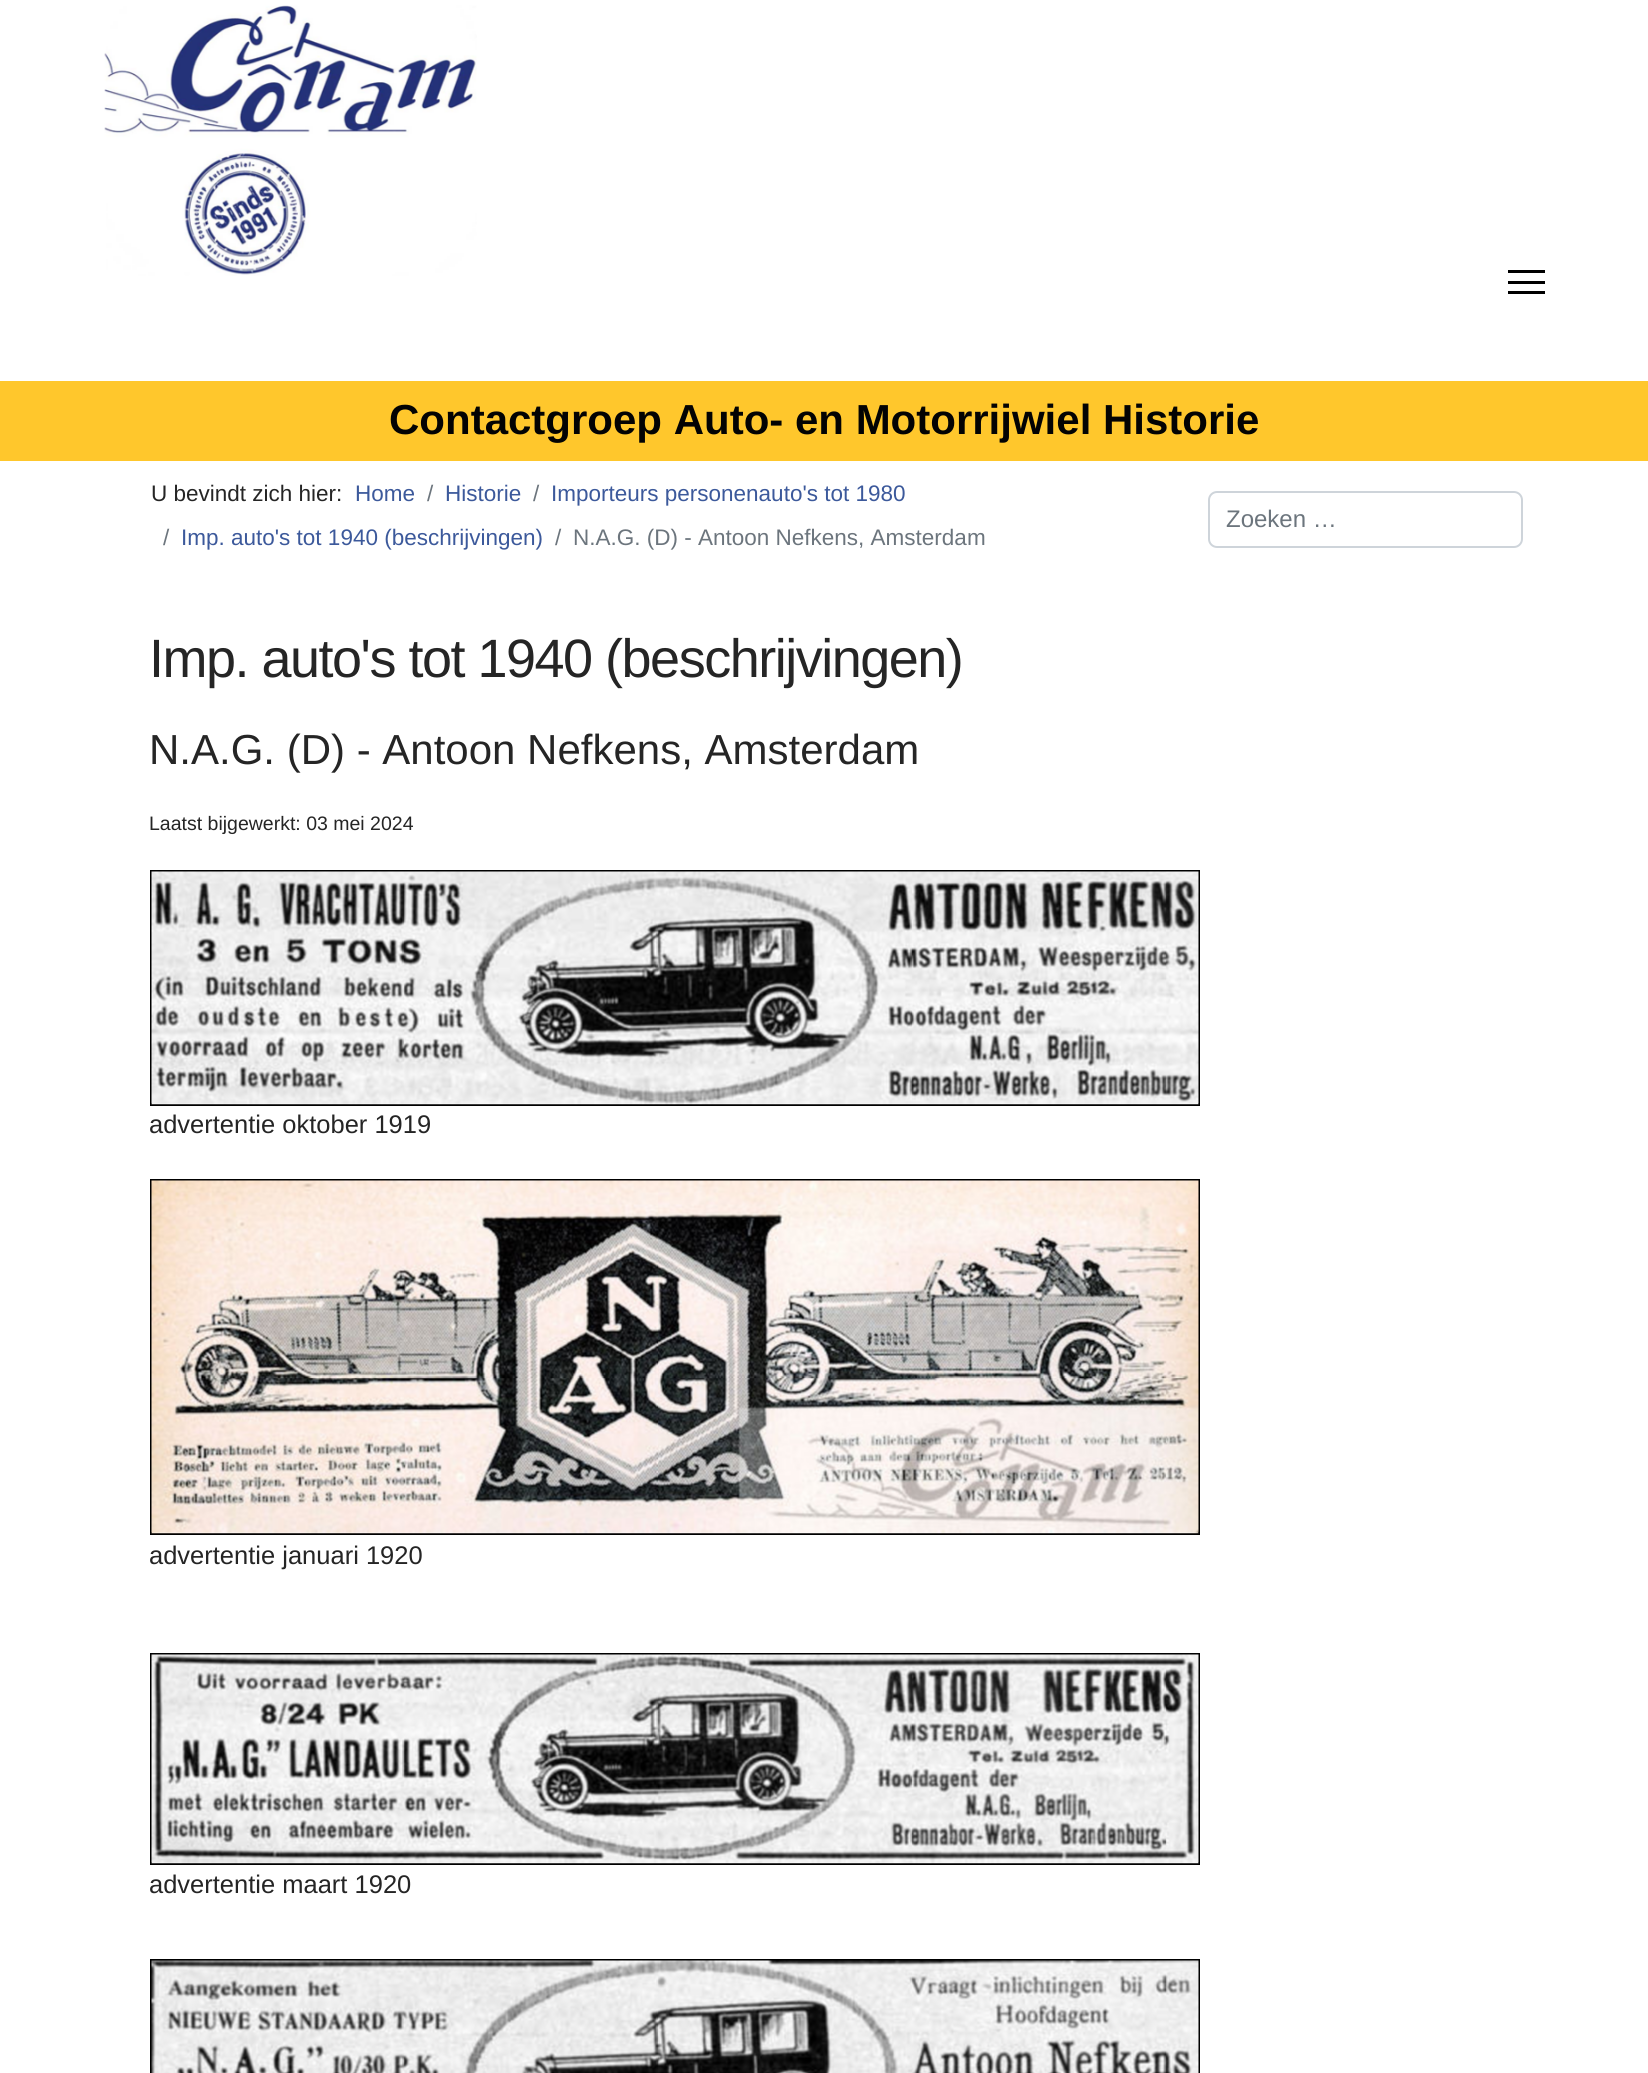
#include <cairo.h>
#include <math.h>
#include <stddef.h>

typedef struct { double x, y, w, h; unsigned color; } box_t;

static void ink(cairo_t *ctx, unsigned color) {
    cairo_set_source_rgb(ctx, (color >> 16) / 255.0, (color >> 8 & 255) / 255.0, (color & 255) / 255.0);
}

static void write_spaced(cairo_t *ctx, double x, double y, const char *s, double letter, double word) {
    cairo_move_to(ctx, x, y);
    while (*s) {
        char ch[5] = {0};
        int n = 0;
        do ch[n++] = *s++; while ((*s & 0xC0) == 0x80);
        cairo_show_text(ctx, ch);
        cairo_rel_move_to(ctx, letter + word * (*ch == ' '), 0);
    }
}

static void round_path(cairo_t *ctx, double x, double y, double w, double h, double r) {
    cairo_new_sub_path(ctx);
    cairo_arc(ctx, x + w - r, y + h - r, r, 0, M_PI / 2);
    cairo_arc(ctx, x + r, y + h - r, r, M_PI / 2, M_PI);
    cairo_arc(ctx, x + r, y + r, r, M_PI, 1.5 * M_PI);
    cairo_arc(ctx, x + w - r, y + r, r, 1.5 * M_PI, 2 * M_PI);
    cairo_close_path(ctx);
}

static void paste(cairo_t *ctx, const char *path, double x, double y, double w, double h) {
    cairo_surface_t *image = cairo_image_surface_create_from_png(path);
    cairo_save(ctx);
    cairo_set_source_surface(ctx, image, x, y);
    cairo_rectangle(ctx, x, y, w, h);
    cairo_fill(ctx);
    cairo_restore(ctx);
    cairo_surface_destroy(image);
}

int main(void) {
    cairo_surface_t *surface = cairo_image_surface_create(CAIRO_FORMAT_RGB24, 1648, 2073);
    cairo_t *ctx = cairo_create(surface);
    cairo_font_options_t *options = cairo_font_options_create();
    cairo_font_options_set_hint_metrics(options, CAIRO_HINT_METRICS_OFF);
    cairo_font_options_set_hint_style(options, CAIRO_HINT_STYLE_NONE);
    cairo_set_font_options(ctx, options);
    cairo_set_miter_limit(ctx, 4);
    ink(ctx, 0xFFFFFF);
    cairo_paint(ctx);
    paste(ctx, "media/1.png", 104, 5, 373, 271);
    {
        static const box_t items[] = {
            {1508, 270, 37, 3, 0x000000},
            {1508, 281, 37, 3, 0x000000},
            {1508, 291, 37, 3, 0x000000},
            {0, 381, 1648, 80, 0xFFC72C},
        };
        for (size_t i = 0; i < sizeof items / sizeof *items; i++) {
            ink(ctx, items[i].color);
            cairo_rectangle(ctx, items[i].x, items[i].y, items[i].w, items[i].h);
            cairo_fill(ctx);
        }
    }
    cairo_select_font_face(ctx, "Liberation Sans", CAIRO_FONT_SLANT_NORMAL, CAIRO_FONT_WEIGHT_BOLD);
    cairo_set_font_size(ctx, 42);
    ink(ctx, 0x030303);
    cairo_move_to(ctx, 389, 434);
    cairo_show_text(ctx, "Contactgroep Auto- en Motorrijwiel Historie");
    cairo_select_font_face(ctx, "Liberation Sans", CAIRO_FONT_SLANT_NORMAL, CAIRO_FONT_WEIGHT_NORMAL);
    cairo_set_font_size(ctx, 22.5);
    ink(ctx, 0x252525);
    cairo_move_to(ctx, 151, 501);
    cairo_show_text(ctx, "U bevindt zich hier:");
    ink(ctx, 0x3C599B);
    cairo_move_to(ctx, 355, 501);
    cairo_show_text(ctx, "Home");
    ink(ctx, 0x6C757D);
    cairo_move_to(ctx, 427, 501);
    cairo_show_text(ctx, "/");
    ink(ctx, 0x3C599B);
    cairo_move_to(ctx, 445, 501);
    cairo_show_text(ctx, "Historie");
    ink(ctx, 0x6C757D);
    cairo_move_to(ctx, 533, 501);
    cairo_show_text(ctx, "/");
    ink(ctx, 0x3C599B);
    cairo_move_to(ctx, 551, 501);
    cairo_show_text(ctx, "Importeurs personenauto's tot 1980");
    ink(ctx, 0x6C757D);
    cairo_move_to(ctx, 163, 545);
    cairo_show_text(ctx, "/");
    ink(ctx, 0x3C599B);
    cairo_move_to(ctx, 181, 545);
    cairo_show_text(ctx, "Imp. auto's tot 1940 (beschrijvingen)");
    ink(ctx, 0x6C757D);
    cairo_move_to(ctx, 555, 545);
    cairo_show_text(ctx, "/");
    cairo_move_to(ctx, 573, 545);
    cairo_show_text(ctx, "N.A.G. (D) - Antoon Nefkens, Amsterdam");
    round_path(ctx, 1209, 492, 313, 55, 8);
    ink(ctx, 0xCED4DA);
    cairo_stroke(ctx);
    cairo_set_font_size(ctx, 24);
    ink(ctx, 0x6C757D);
    cairo_move_to(ctx, 1226, 527);
    cairo_show_text(ctx, "Zoeken …");
    cairo_set_font_size(ctx, 54);
    ink(ctx, 0x252525);
    write_spaced(ctx, 149, 677, "Imp. auto's tot 1940 (beschrijvingen)", -1.5, 0);
    cairo_set_font_size(ctx, 42);
    cairo_move_to(ctx, 149, 764);
    cairo_show_text(ctx, "N.A.G. (D) - Antoon Nefkens, Amsterdam");
    cairo_set_font_size(ctx, 19.5);
    cairo_move_to(ctx, 149, 830);
    cairo_show_text(ctx, "Laatst bijgewerkt: 03 mei 2024");
    cairo_rectangle(ctx, 151, 871, 1048, 234);
    ink(ctx, 0x000000);
    cairo_stroke(ctx);
    paste(ctx, "media/2.png", 151, 871, 1048, 234);
    cairo_set_font_size(ctx, 25.5);
    ink(ctx, 0x252525);
    cairo_move_to(ctx, 149, 1133);
    cairo_show_text(ctx, "advertentie oktober 1919");
    cairo_rectangle(ctx, 151, 1180, 1048, 354);
    ink(ctx, 0x000000);
    cairo_stroke(ctx);
    paste(ctx, "media/3.png", 151, 1180, 1048, 354);
    ink(ctx, 0x252525);
    cairo_move_to(ctx, 149, 1564);
    cairo_show_text(ctx, "advertentie januari 1920");
    cairo_rectangle(ctx, 151, 1654, 1048, 210);
    ink(ctx, 0x000000);
    cairo_stroke(ctx);
    paste(ctx, "media/4.png", 151, 1654, 1048, 210);
    ink(ctx, 0x252525);
    cairo_move_to(ctx, 149, 1893);
    cairo_show_text(ctx, "advertentie maart 1920");
    cairo_rectangle(ctx, 151, 1960, 1048, 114);
    ink(ctx, 0x000000);
    cairo_stroke(ctx);
    paste(ctx, "media/5.png", 151, 1960, 1048, 113);
    cairo_surface_write_to_png(surface, "image.png");
    cairo_font_options_destroy(options);
    cairo_destroy(ctx);
    cairo_surface_destroy(surface);
    return 0;
}
